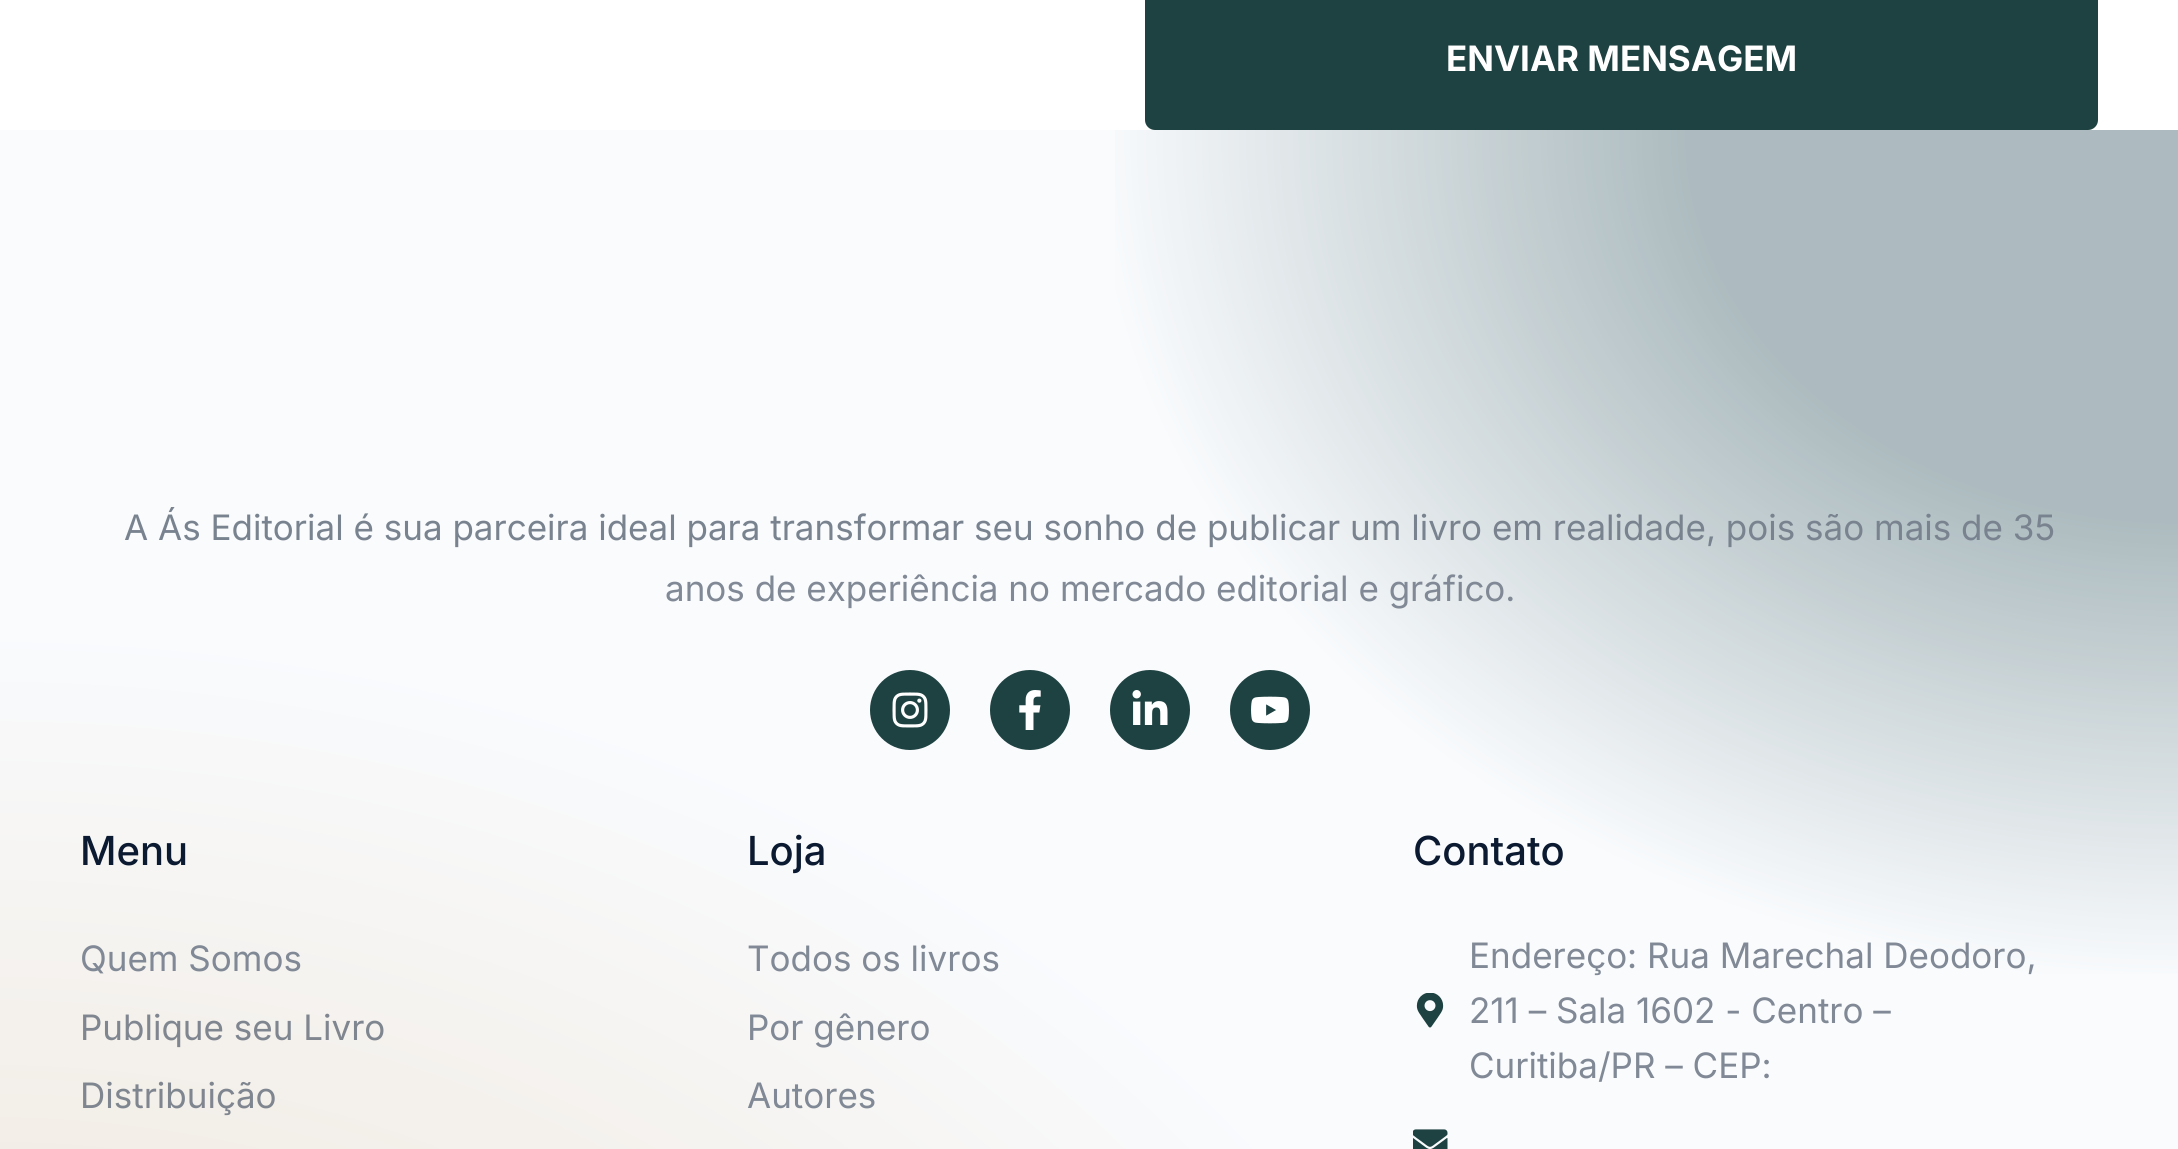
#include <cairo.h>
#include <math.h>
#include <stddef.h>

typedef struct { double x, y; const char *s; } line_t;

static void ink(cairo_t *ctx, unsigned color) {
    cairo_set_source_rgb(ctx, (color >> 16) / 255.0, (color >> 8 & 255) / 255.0, (color & 255) / 255.0);
}

static void round_path(cairo_t *ctx, double x, double y, double w, double h, double r) {
    cairo_new_sub_path(ctx);
    cairo_arc(ctx, x + w - r, y + h - r, r, 0, M_PI / 2);
    cairo_arc(ctx, x + r, y + h - r, r, M_PI / 2, M_PI);
    cairo_arc(ctx, x + r, y + r, r, M_PI, 1.5 * M_PI);
    cairo_arc(ctx, x + w - r, y + r, r, 1.5 * M_PI, 2 * M_PI);
    cairo_close_path(ctx);
}

static void paste(cairo_t *ctx, const char *path, double x, double y, double w, double h) {
    cairo_surface_t *image = cairo_image_surface_create_from_png(path);
    cairo_save(ctx);
    cairo_set_source_surface(ctx, image, x, y);
    cairo_rectangle(ctx, x, y, w, h);
    cairo_fill(ctx);
    cairo_restore(ctx);
    cairo_surface_destroy(image);
}

int main(void) {
    cairo_surface_t *surface = cairo_image_surface_create(CAIRO_FORMAT_RGB24, 2178, 1149);
    cairo_t *ctx = cairo_create(surface);
    cairo_font_options_t *options = cairo_font_options_create();
    cairo_font_options_set_hint_metrics(options, CAIRO_HINT_METRICS_OFF);
    cairo_font_options_set_hint_style(options, CAIRO_HINT_STYLE_NONE);
    cairo_set_font_options(ctx, options);
    cairo_set_miter_limit(ctx, 4);
    cairo_pattern_t *gradient;
    ink(ctx, 0xFFFFFF);
    cairo_paint(ctx);
    ink(ctx, 0x1E4241);
    round_path(ctx, 1145, -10, 953, 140, 10);
    cairo_fill(ctx);
    cairo_select_font_face(ctx, "Inter", CAIRO_FONT_SLANT_NORMAL, CAIRO_FONT_WEIGHT_BOLD);
    cairo_set_font_size(ctx, 35);
    ink(ctx, 0xFFFFFF);
    cairo_move_to(ctx, 1446, 71);
    cairo_show_text(ctx, "ENVIAR MENSAGEM");
    gradient = cairo_pattern_create_radial(0, 0, 0, 0, 0, 1);
    cairo_pattern_set_matrix(gradient, &(cairo_matrix_t){1.0 / 3083, 0, 0, 1.0 / 2450, -1.0 * 2180 / 3083, -1.0 * 130 / 2450});
    cairo_pattern_add_color_stop_rgba(gradient, 0.16, 0.573, 0.643, 0.655, 1);
    cairo_pattern_add_color_stop_rgba(gradient, 0.35, 1, 1, 1, 1);
    cairo_set_source(ctx, gradient);
    cairo_pattern_destroy(gradient);
    cairo_rectangle(ctx, 1115, 130, 1063, 844);
    cairo_fill(ctx);
    gradient = cairo_pattern_create_radial(0, 0, 0, 0, 0, 1);
    cairo_pattern_set_matrix(gradient, &(cairo_matrix_t){1.0 / 3083, 0, 0, 1.0 / 2450, -1.0 * 0 / 3083, -1.0 * 1863 / 2450});
    cairo_pattern_add_color_stop_rgba(gradient, 0, 0.722, 0.549, 0.302, 0.3);
    cairo_pattern_add_color_stop_rgba(gradient, 0.5, 0.929, 0.949, 0.98, 0.3);
    cairo_set_source(ctx, gradient);
    cairo_pattern_destroy(gradient);
    cairo_rectangle(ctx, 0, 130, 2178, 1019);
    cairo_fill(ctx);
    cairo_select_font_face(ctx, "Inter", CAIRO_FONT_SLANT_NORMAL, CAIRO_FONT_WEIGHT_NORMAL);
    ink(ctx, 0x79838F);
    cairo_move_to(ctx, 124, 540);
    cairo_show_text(ctx, "A Ás Editorial é sua parceira ideal para transformar seu sonho de publicar um livro em realidade, pois são mais de 35");
    ink(ctx, 0x808995);
    cairo_move_to(ctx, 665, 601);
    cairo_show_text(ctx, "anos de experiência no mercado editorial e gráfico.");
    ink(ctx, 0x1E4241);
    cairo_new_path(ctx);
    cairo_arc(ctx, 910, 710, 40, 0, 2 * M_PI);
    cairo_fill(ctx);
    paste(ctx, "media/1.png", 892, 692, 36, 36);
    cairo_arc(ctx, 1030, 710, 40, 0, 2 * M_PI);
    cairo_fill(ctx);
    paste(ctx, "media/2.png", 1019, 690, 22, 40);
    cairo_arc(ctx, 1150, 710, 40, 0, 2 * M_PI);
    cairo_fill(ctx);
    paste(ctx, "media/3.png", 1132, 690, 36, 35);
    cairo_arc(ctx, 1270, 710, 40, 0, 2 * M_PI);
    cairo_fill(ctx);
    paste(ctx, "media/4.png", 1251, 696, 38, 28);
    cairo_select_font_face(ctx, "Inter Medium", CAIRO_FONT_SLANT_NORMAL, CAIRO_FONT_WEIGHT_NORMAL);
    cairo_set_font_size(ctx, 40);
    ink(ctx, 0x0B1A30);
    cairo_move_to(ctx, 80, 865);
    cairo_show_text(ctx, "Menu");
    cairo_select_font_face(ctx, "Inter", CAIRO_FONT_SLANT_NORMAL, CAIRO_FONT_WEIGHT_NORMAL);
    cairo_set_font_size(ctx, 35);
    ink(ctx, 0x808995);
    cairo_move_to(ctx, 80, 971);
    cairo_show_text(ctx, "Quem Somos");
    ink(ctx, 0x80868F);
    cairo_move_to(ctx, 80, 1040);
    cairo_show_text(ctx, "Publique seu Livro");
    cairo_move_to(ctx, 80, 1108);
    cairo_show_text(ctx, "Distribuição");
    cairo_select_font_face(ctx, "Inter Medium", CAIRO_FONT_SLANT_NORMAL, CAIRO_FONT_WEIGHT_NORMAL);
    cairo_set_font_size(ctx, 40);
    ink(ctx, 0x0B1A30);
    cairo_move_to(ctx, 747, 865);
    cairo_show_text(ctx, "Loja");
    cairo_select_font_face(ctx, "Inter", CAIRO_FONT_SLANT_NORMAL, CAIRO_FONT_WEIGHT_NORMAL);
    cairo_set_font_size(ctx, 35);
    ink(ctx, 0x808995);
    {
        static const line_t items[] = {
            {747, 971, "Todos os livros"},
            {747, 1040, "Por gênero"},
            {747, 1108, "Autores"},
        };
        for (size_t i = 0; i < sizeof items / sizeof *items; i++) {
            cairo_move_to(ctx, items[i].x, items[i].y);
            cairo_show_text(ctx, items[i].s);
        }
    }
    cairo_select_font_face(ctx, "Inter Medium", CAIRO_FONT_SLANT_NORMAL, CAIRO_FONT_WEIGHT_NORMAL);
    cairo_set_font_size(ctx, 40);
    ink(ctx, 0x0B1A30);
    cairo_move_to(ctx, 1413, 865);
    cairo_show_text(ctx, "Contato");
    paste(ctx, "media/5.png", 1416, 993, 28, 35);
    cairo_select_font_face(ctx, "Inter", CAIRO_FONT_SLANT_NORMAL, CAIRO_FONT_WEIGHT_NORMAL);
    cairo_set_font_size(ctx, 35);
    ink(ctx, 0x808995);
    {
        static const line_t items[] = {
            {1469, 968, "Endereço: Rua Marechal Deodoro,"},
            {1469, 1023, "211 – Sala 1602 - Centro –"},
            {1469, 1078, "Curitiba/PR – CEP:"},
        };
        for (size_t i = 0; i < sizeof items / sizeof *items; i++) {
            cairo_move_to(ctx, items[i].x, items[i].y);
            cairo_show_text(ctx, items[i].s);
        }
    }
    paste(ctx, "media/6.png", 1413, 1129, 35, 20);
    cairo_surface_write_to_png(surface, "image.png");
    cairo_font_options_destroy(options);
    cairo_destroy(ctx);
    cairo_surface_destroy(surface);
    return 0;
}
